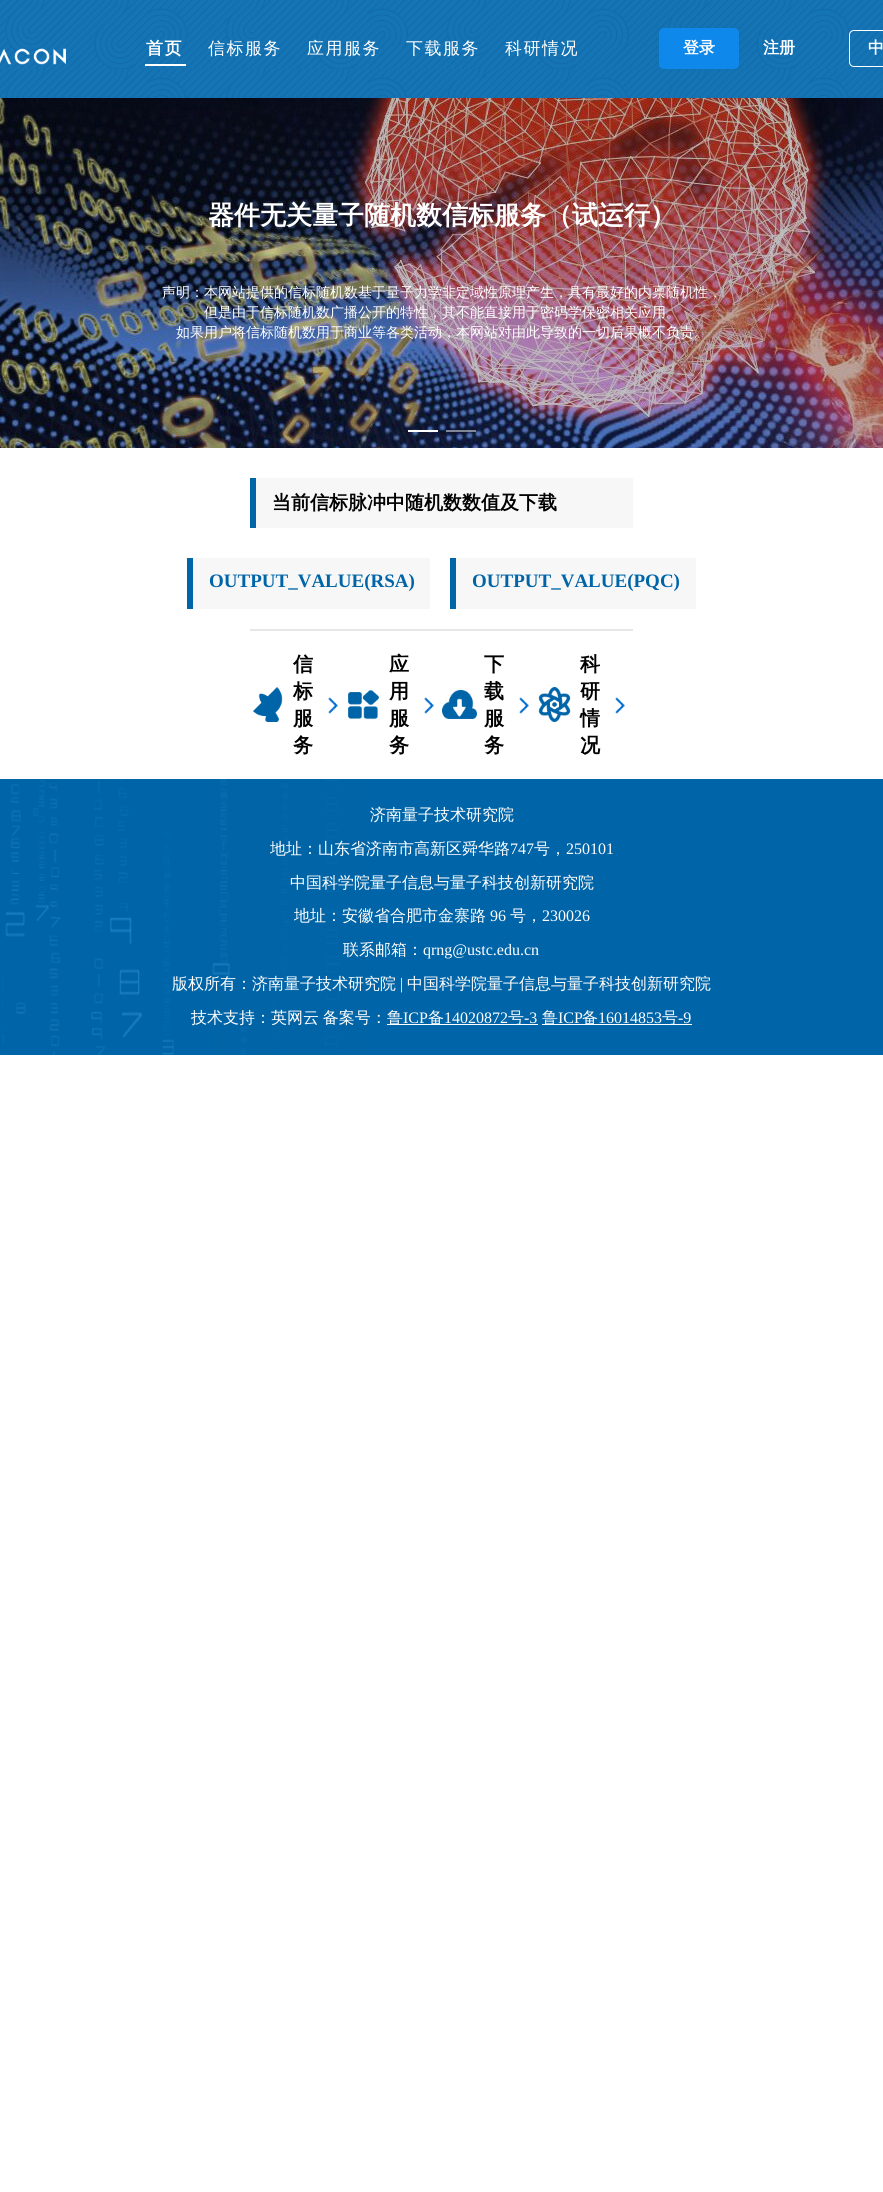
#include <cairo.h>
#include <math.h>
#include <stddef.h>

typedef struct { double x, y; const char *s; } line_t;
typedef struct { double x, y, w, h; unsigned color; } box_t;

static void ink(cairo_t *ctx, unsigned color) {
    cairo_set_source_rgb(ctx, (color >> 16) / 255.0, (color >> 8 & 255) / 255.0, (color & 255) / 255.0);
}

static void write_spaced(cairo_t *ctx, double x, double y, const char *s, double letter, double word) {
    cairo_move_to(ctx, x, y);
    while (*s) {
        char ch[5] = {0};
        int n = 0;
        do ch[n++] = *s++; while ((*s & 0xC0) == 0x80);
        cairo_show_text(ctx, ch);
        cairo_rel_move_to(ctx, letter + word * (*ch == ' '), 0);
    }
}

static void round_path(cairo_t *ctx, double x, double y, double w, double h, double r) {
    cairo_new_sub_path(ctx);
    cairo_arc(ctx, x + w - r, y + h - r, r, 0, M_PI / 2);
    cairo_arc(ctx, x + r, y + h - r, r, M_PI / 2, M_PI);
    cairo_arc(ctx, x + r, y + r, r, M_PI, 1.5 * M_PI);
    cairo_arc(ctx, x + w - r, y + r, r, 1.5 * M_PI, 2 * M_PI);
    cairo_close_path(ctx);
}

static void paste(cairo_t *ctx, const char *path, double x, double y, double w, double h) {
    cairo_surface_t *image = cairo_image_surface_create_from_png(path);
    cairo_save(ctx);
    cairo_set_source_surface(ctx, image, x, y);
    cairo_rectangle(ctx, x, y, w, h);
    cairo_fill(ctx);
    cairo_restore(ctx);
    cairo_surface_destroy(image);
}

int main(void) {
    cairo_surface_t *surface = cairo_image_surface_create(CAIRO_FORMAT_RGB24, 883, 2192);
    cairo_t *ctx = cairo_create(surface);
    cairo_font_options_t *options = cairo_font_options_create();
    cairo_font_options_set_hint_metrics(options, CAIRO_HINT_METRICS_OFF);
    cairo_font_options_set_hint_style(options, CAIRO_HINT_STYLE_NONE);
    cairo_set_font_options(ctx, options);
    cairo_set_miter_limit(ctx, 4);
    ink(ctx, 0xFFFFFF);
    cairo_paint(ctx);
    paste(ctx, "media/1.png", 0, 0, 883, 98);
    paste(ctx, "media/2.png", 0, 48, 66, 17);
    cairo_select_font_face(ctx, "WenQuanYi Zen Hei", CAIRO_FONT_SLANT_NORMAL, CAIRO_FONT_WEIGHT_BOLD);
    cairo_set_font_size(ctx, 17);
    ink(ctx, 0xFFFFFF);
    write_spaced(ctx, 146, 54, "首页", 1.5, 0);
    cairo_rectangle(ctx, 145, 64, 41, 2);
    cairo_fill(ctx);
    cairo_select_font_face(ctx, "WenQuanYi Zen Hei Medium", CAIRO_FONT_SLANT_NORMAL, CAIRO_FONT_WEIGHT_NORMAL);
    {
        static const line_t items[] = {
            {208, 54, "信标服务"},
            {307, 54, "应用服务"},
            {406, 54, "下载服务"},
            {505, 54, "科研情况"},
        };
        for (size_t i = 0; i < sizeof items / sizeof *items; i++) {
            write_spaced(ctx, items[i].x, items[i].y, items[i].s, 1.5, 0);
        }
    }
    ink(ctx, 0x0F88EB);
    round_path(ctx, 659, 28, 80, 41, 5);
    cairo_fill(ctx);
    cairo_select_font_face(ctx, "WenQuanYi Zen Hei", CAIRO_FONT_SLANT_NORMAL, CAIRO_FONT_WEIGHT_BOLD);
    cairo_set_font_size(ctx, 16);
    ink(ctx, 0xFFFFFF);
    cairo_move_to(ctx, 683, 53);
    cairo_show_text(ctx, "登录");
    cairo_move_to(ctx, 763, 53);
    cairo_show_text(ctx, "注册");
    round_path(ctx, 849.5, 30.5, 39, 36, 4.5);
    cairo_set_line_width(ctx, 1);
    cairo_stroke(ctx);
    cairo_move_to(ctx, 868, 53);
    cairo_show_text(ctx, "中");
    paste(ctx, "media/3.png", 0, 98, 883, 350);
    cairo_set_font_size(ctx, 26);
    cairo_move_to(ctx, 208, 224);
    cairo_show_text(ctx, "器件无关量子随机数信标服务（试运行）");
    cairo_select_font_face(ctx, "WenQuanYi Zen Hei Medium", CAIRO_FONT_SLANT_NORMAL, CAIRO_FONT_WEIGHT_NORMAL);
    cairo_set_font_size(ctx, 14);
    {
        static const line_t items[] = {
            {162, 297, "声明：本网站提供的信标随机数基于量子力学非定域性原理产生，具有最好的内禀随机性，"},
            {204, 317, "但是由于信标随机数广播公开的特性，其不能直接用于密码学保密相关应用。"},
            {176, 337, "如果用户将信标随机数用于商业等各类活动，本网站对由此导致的一切后果概不负责。"},
        };
        for (size_t i = 0; i < sizeof items / sizeof *items; i++) {
            cairo_move_to(ctx, items[i].x, items[i].y);
            cairo_show_text(ctx, items[i].s);
        }
    }
    cairo_rectangle(ctx, 408, 430, 30, 2);
    cairo_fill(ctx);
    cairo_set_source_rgba(ctx, 1, 1, 1, 0.48);
    cairo_rectangle(ctx, 446, 430, 30, 2);
    cairo_fill(ctx);
    ink(ctx, 0xF7F7F7);
    cairo_rectangle(ctx, 256, 478, 377, 50);
    cairo_fill(ctx);
    ink(ctx, 0x0065A8);
    cairo_rectangle(ctx, 250, 478, 6, 50);
    cairo_fill(ctx);
    cairo_select_font_face(ctx, "WenQuanYi Zen Hei", CAIRO_FONT_SLANT_NORMAL, CAIRO_FONT_WEIGHT_BOLD);
    cairo_set_font_size(ctx, 19);
    ink(ctx, 0x000000);
    cairo_move_to(ctx, 272, 509);
    cairo_show_text(ctx, "当前信标脉冲中随机数数值及下载");
    {
        static const box_t items[] = {
            {250, 629, 383, 2, 0xE7E7E7},
            {193, 558, 237, 51, 0xF7F7F7},
            {187, 558, 6, 51, 0x0065A8},
        };
        for (size_t i = 0; i < sizeof items / sizeof *items; i++) {
            ink(ctx, items[i].color);
            cairo_rectangle(ctx, items[i].x, items[i].y, items[i].w, items[i].h);
            cairo_fill(ctx);
        }
    }
    cairo_select_font_face(ctx, "Liberation Serif", CAIRO_FONT_SLANT_NORMAL, CAIRO_FONT_WEIGHT_BOLD);
    cairo_move_to(ctx, 209, 587);
    cairo_show_text(ctx, "OUTPUT_VALUE(RSA)");
    ink(ctx, 0xF7F7F7);
    cairo_rectangle(ctx, 456, 558, 240, 51);
    cairo_fill(ctx);
    ink(ctx, 0x0065A8);
    cairo_rectangle(ctx, 450, 558, 6, 51);
    cairo_fill(ctx);
    cairo_move_to(ctx, 472, 587);
    cairo_show_text(ctx, "OUTPUT_VALUE(PQC)");
    paste(ctx, "media/4.png", 253, 687, 30, 35);
    cairo_select_font_face(ctx, "WenQuanYi Zen Hei", CAIRO_FONT_SLANT_NORMAL, CAIRO_FONT_WEIGHT_BOLD);
    cairo_set_font_size(ctx, 20);
    ink(ctx, 0x000000);
    {
        static const line_t items[] = {
            {293, 671, "信"},
            {293, 698, "标"},
            {293, 725, "服"},
            {293, 752, "务"},
        };
        for (size_t i = 0; i < sizeof items / sizeof *items; i++) {
            cairo_move_to(ctx, items[i].x, items[i].y);
            cairo_show_text(ctx, items[i].s);
        }
    }
    paste(ctx, "media/5.png", 328, 697, 10, 17);
    paste(ctx, "media/6.png", 348, 690, 31, 30);
    {
        static const line_t items[] = {
            {389, 671, "应"},
            {389, 698, "用"},
            {389, 725, "服"},
            {389, 752, "务"},
        };
        for (size_t i = 0; i < sizeof items / sizeof *items; i++) {
            cairo_move_to(ctx, items[i].x, items[i].y);
            cairo_show_text(ctx, items[i].s);
        }
    }
    paste(ctx, "media/7.png", 424, 697, 10, 17);
    paste(ctx, "media/8.png", 442, 690, 35, 29);
    {
        static const line_t items[] = {
            {484, 671, "下"},
            {484, 698, "载"},
            {484, 725, "服"},
            {484, 752, "务"},
        };
        for (size_t i = 0; i < sizeof items / sizeof *items; i++) {
            cairo_move_to(ctx, items[i].x, items[i].y);
            cairo_show_text(ctx, items[i].s);
        }
    }
    paste(ctx, "media/7.png", 519, 697, 10, 17);
    paste(ctx, "media/9.png", 538, 687, 33, 35);
    {
        static const line_t items[] = {
            {580, 671, "科"},
            {580, 698, "研"},
            {580, 725, "情"},
            {580, 752, "况"},
        };
        for (size_t i = 0; i < sizeof items / sizeof *items; i++) {
            cairo_move_to(ctx, items[i].x, items[i].y);
            cairo_show_text(ctx, items[i].s);
        }
    }
    paste(ctx, "media/7.png", 615, 697, 10, 17);
    paste(ctx, "media/10.png", 0, 779, 883, 276);
    cairo_select_font_face(ctx, "WenQuanYi Zen Hei Medium", CAIRO_FONT_SLANT_NORMAL, CAIRO_FONT_WEIGHT_NORMAL);
    cairo_set_font_size(ctx, 16);
    ink(ctx, 0xFFFFFF);
    cairo_move_to(ctx, 370, 820);
    cairo_show_text(ctx, "济南量子技术研究院");
    cairo_move_to(ctx, 270, 854);
    cairo_show_text(ctx, "地址：山东省济南市高新区舜华路");
    cairo_select_font_face(ctx, "Liberation Serif", CAIRO_FONT_SLANT_NORMAL, CAIRO_FONT_WEIGHT_NORMAL);
    cairo_move_to(ctx, 510, 854);
    cairo_show_text(ctx, "747");
    cairo_select_font_face(ctx, "WenQuanYi Zen Hei Medium", CAIRO_FONT_SLANT_NORMAL, CAIRO_FONT_WEIGHT_NORMAL);
    cairo_move_to(ctx, 534, 854);
    cairo_show_text(ctx, "号，");
    cairo_select_font_face(ctx, "Liberation Serif", CAIRO_FONT_SLANT_NORMAL, CAIRO_FONT_WEIGHT_NORMAL);
    cairo_move_to(ctx, 566, 854);
    cairo_show_text(ctx, "250101");
    cairo_select_font_face(ctx, "WenQuanYi Zen Hei Medium", CAIRO_FONT_SLANT_NORMAL, CAIRO_FONT_WEIGHT_NORMAL);
    cairo_move_to(ctx, 290, 888);
    cairo_show_text(ctx, "中国科学院量子信息与量子科技创新研究院");
    cairo_move_to(ctx, 294, 921);
    cairo_show_text(ctx, "地址：安徽省合肥市金寨路");
    cairo_select_font_face(ctx, "Liberation Serif", CAIRO_FONT_SLANT_NORMAL, CAIRO_FONT_WEIGHT_NORMAL);
    cairo_move_to(ctx, 490, 921);
    cairo_show_text(ctx, "96");
    cairo_select_font_face(ctx, "WenQuanYi Zen Hei Medium", CAIRO_FONT_SLANT_NORMAL, CAIRO_FONT_WEIGHT_NORMAL);
    cairo_move_to(ctx, 510, 921);
    cairo_show_text(ctx, "号，");
    cairo_select_font_face(ctx, "Liberation Serif", CAIRO_FONT_SLANT_NORMAL, CAIRO_FONT_WEIGHT_NORMAL);
    cairo_move_to(ctx, 542, 921);
    cairo_show_text(ctx, "230026");
    cairo_select_font_face(ctx, "WenQuanYi Zen Hei Medium", CAIRO_FONT_SLANT_NORMAL, CAIRO_FONT_WEIGHT_NORMAL);
    cairo_move_to(ctx, 343, 955);
    cairo_show_text(ctx, "联系邮箱：");
    cairo_select_font_face(ctx, "Liberation Serif", CAIRO_FONT_SLANT_NORMAL, CAIRO_FONT_WEIGHT_NORMAL);
    cairo_move_to(ctx, 423, 955);
    cairo_show_text(ctx, "qrng@ustc.edu.cn");
    cairo_select_font_face(ctx, "WenQuanYi Zen Hei Medium", CAIRO_FONT_SLANT_NORMAL, CAIRO_FONT_WEIGHT_NORMAL);
    cairo_move_to(ctx, 172, 989);
    cairo_show_text(ctx, "版权所有：济南量子技术研究院");
    cairo_select_font_face(ctx, "Liberation Serif", CAIRO_FONT_SLANT_NORMAL, CAIRO_FONT_WEIGHT_NORMAL);
    cairo_move_to(ctx, 400, 989);
    cairo_show_text(ctx, "|");
    cairo_select_font_face(ctx, "WenQuanYi Zen Hei Medium", CAIRO_FONT_SLANT_NORMAL, CAIRO_FONT_WEIGHT_NORMAL);
    cairo_move_to(ctx, 407, 989);
    cairo_show_text(ctx, "中国科学院量子信息与量子科技创新研究院");
    write_spaced(ctx, 191, 1023, "技术支持：英网云 备案号：", 0, -1);
    cairo_rectangle(ctx, 387, 1024, 151, 1);
    cairo_fill(ctx);
    cairo_move_to(ctx, 387, 1023);
    cairo_show_text(ctx, "鲁");
    cairo_select_font_face(ctx, "Liberation Serif", CAIRO_FONT_SLANT_NORMAL, CAIRO_FONT_WEIGHT_NORMAL);
    cairo_move_to(ctx, 403, 1023);
    cairo_show_text(ctx, "ICP");
    cairo_select_font_face(ctx, "WenQuanYi Zen Hei Medium", CAIRO_FONT_SLANT_NORMAL, CAIRO_FONT_WEIGHT_NORMAL);
    cairo_move_to(ctx, 428, 1023);
    cairo_show_text(ctx, "备");
    cairo_select_font_face(ctx, "Liberation Serif", CAIRO_FONT_SLANT_NORMAL, CAIRO_FONT_WEIGHT_NORMAL);
    cairo_move_to(ctx, 444, 1023);
    cairo_show_text(ctx, "14020872");
    cairo_select_font_face(ctx, "WenQuanYi Zen Hei Medium", CAIRO_FONT_SLANT_NORMAL, CAIRO_FONT_WEIGHT_NORMAL);
    cairo_move_to(ctx, 508, 1023);
    cairo_show_text(ctx, "号");
    cairo_select_font_face(ctx, "Liberation Serif", CAIRO_FONT_SLANT_NORMAL, CAIRO_FONT_WEIGHT_NORMAL);
    cairo_move_to(ctx, 524, 1023);
    cairo_show_text(ctx, "-3");
    cairo_rectangle(ctx, 542, 1024, 150, 1);
    cairo_fill(ctx);
    cairo_select_font_face(ctx, "WenQuanYi Zen Hei Medium", CAIRO_FONT_SLANT_NORMAL, CAIRO_FONT_WEIGHT_NORMAL);
    cairo_move_to(ctx, 542, 1023);
    cairo_show_text(ctx, "鲁");
    cairo_select_font_face(ctx, "Liberation Serif", CAIRO_FONT_SLANT_NORMAL, CAIRO_FONT_WEIGHT_NORMAL);
    cairo_move_to(ctx, 558, 1023);
    cairo_show_text(ctx, "ICP");
    cairo_select_font_face(ctx, "WenQuanYi Zen Hei Medium", CAIRO_FONT_SLANT_NORMAL, CAIRO_FONT_WEIGHT_NORMAL);
    cairo_move_to(ctx, 582, 1023);
    cairo_show_text(ctx, "备");
    cairo_select_font_face(ctx, "Liberation Serif", CAIRO_FONT_SLANT_NORMAL, CAIRO_FONT_WEIGHT_NORMAL);
    cairo_move_to(ctx, 598, 1023);
    cairo_show_text(ctx, "16014853");
    cairo_select_font_face(ctx, "WenQuanYi Zen Hei Medium", CAIRO_FONT_SLANT_NORMAL, CAIRO_FONT_WEIGHT_NORMAL);
    cairo_move_to(ctx, 662, 1023);
    cairo_show_text(ctx, "号");
    cairo_select_font_face(ctx, "Liberation Serif", CAIRO_FONT_SLANT_NORMAL, CAIRO_FONT_WEIGHT_NORMAL);
    cairo_move_to(ctx, 678, 1023);
    cairo_show_text(ctx, "-9");
    cairo_surface_write_to_png(surface, "image.png");
    cairo_font_options_destroy(options);
    cairo_destroy(ctx);
    cairo_surface_destroy(surface);
    return 0;
}
